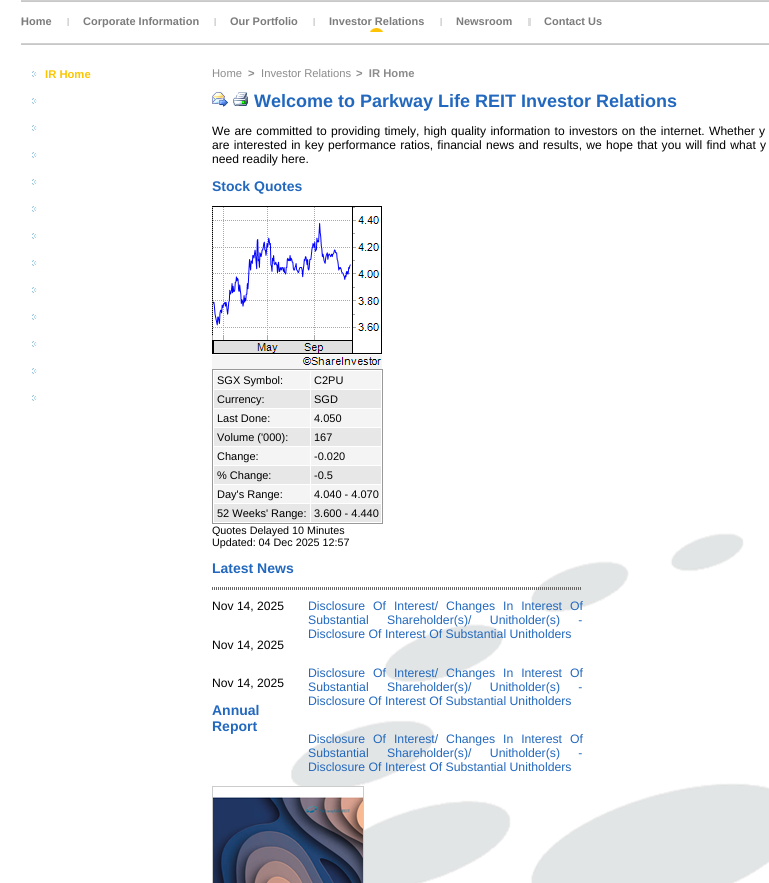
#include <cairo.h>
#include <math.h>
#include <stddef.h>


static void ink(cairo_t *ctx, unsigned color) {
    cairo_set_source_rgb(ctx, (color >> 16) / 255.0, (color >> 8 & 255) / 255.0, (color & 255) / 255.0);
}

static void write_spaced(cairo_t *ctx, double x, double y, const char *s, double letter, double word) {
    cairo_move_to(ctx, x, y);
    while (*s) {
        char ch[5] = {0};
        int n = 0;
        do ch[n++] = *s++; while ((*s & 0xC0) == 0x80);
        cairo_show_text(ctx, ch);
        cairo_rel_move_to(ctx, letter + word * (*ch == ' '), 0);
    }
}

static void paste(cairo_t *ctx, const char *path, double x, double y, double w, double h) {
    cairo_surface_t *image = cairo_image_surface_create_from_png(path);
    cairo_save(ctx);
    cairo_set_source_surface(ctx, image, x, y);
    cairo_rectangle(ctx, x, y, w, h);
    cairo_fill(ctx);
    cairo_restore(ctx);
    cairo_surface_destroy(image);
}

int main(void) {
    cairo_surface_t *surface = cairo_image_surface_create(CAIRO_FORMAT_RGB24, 769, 883);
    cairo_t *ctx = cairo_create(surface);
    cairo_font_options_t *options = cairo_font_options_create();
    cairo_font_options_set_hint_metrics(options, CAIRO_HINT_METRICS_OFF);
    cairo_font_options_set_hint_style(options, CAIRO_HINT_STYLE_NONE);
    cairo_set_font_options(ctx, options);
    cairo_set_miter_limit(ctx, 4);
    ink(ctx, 0xFFFFFF);
    cairo_paint(ctx);
    paste(ctx, "media/1.png", 21, 0, 748, 45);
    paste(ctx, "media/2.png", 21, 18, 2, 8);
    cairo_select_font_face(ctx, "Liberation Sans", CAIRO_FONT_SLANT_NORMAL, CAIRO_FONT_WEIGHT_BOLD);
    cairo_set_font_size(ctx, 11);
    ink(ctx, 0x7C7C7C);
    cairo_move_to(ctx, 21, 25);
    cairo_show_text(ctx, "Home");
    paste(ctx, "media/2.png", 67, 18, 2, 8);
    cairo_move_to(ctx, 83, 25);
    cairo_show_text(ctx, "Corporate Information");
    paste(ctx, "media/2.png", 214, 18, 2, 8);
    cairo_move_to(ctx, 230, 25);
    cairo_show_text(ctx, "Our Portfolio");
    paste(ctx, "media/3.png", 370, 28, 13, 4);
    paste(ctx, "media/2.png", 313, 18, 2, 8);
    cairo_move_to(ctx, 329, 25);
    cairo_show_text(ctx, "Investor Relations");
    paste(ctx, "media/2.png", 440, 18, 2, 8);
    cairo_move_to(ctx, 456, 25);
    cairo_show_text(ctx, "Newsroom");
    ink(ctx, 0xDDDDDD);
    cairo_rectangle(ctx, 528, 18, 3, 8);
    cairo_fill(ctx);
    ink(ctx, 0x7C7C7C);
    cairo_move_to(ctx, 544, 25);
    cairo_show_text(ctx, "Contact Us");
    paste(ctx, "media/4.png", 32, 71, 5, 6);
    cairo_set_font_size(ctx, 11.25);
    ink(ctx, 0xFBC600);
    cairo_move_to(ctx, 45, 78);
    cairo_show_text(ctx, "IR Home");
    paste(ctx, "media/4.png", 32, 98, 5, 6);
    paste(ctx, "media/4.png", 32, 125, 5, 6);
    paste(ctx, "media/4.png", 32, 152, 5, 6);
    paste(ctx, "media/4.png", 32, 179, 5, 6);
    paste(ctx, "media/4.png", 32, 206, 5, 6);
    paste(ctx, "media/4.png", 32, 233, 5, 6);
    paste(ctx, "media/4.png", 32, 260, 5, 6);
    paste(ctx, "media/4.png", 32, 287, 5, 6);
    paste(ctx, "media/4.png", 32, 314, 5, 6);
    paste(ctx, "media/4.png", 32, 341, 5, 6);
    paste(ctx, "media/4.png", 32, 368, 5, 6);
    paste(ctx, "media/4.png", 32, 395, 5, 6);
    paste(ctx, "media/5.png", 291, 533, 478, 350);
    cairo_select_font_face(ctx, "Liberation Sans", CAIRO_FONT_SLANT_NORMAL, CAIRO_FONT_WEIGHT_NORMAL);
    ink(ctx, 0x8C8C8C);
    cairo_move_to(ctx, 212, 77);
    cairo_show_text(ctx, "Home");
    cairo_select_font_face(ctx, "Liberation Sans", CAIRO_FONT_SLANT_NORMAL, CAIRO_FONT_WEIGHT_BOLD);
    cairo_move_to(ctx, 248, 77);
    cairo_show_text(ctx, ">");
    cairo_select_font_face(ctx, "Liberation Sans", CAIRO_FONT_SLANT_NORMAL, CAIRO_FONT_WEIGHT_NORMAL);
    cairo_move_to(ctx, 261, 77);
    cairo_show_text(ctx, "Investor Relations");
    cairo_select_font_face(ctx, "Liberation Sans", CAIRO_FONT_SLANT_NORMAL, CAIRO_FONT_WEIGHT_BOLD);
    cairo_move_to(ctx, 356, 77);
    cairo_show_text(ctx, ">  IR Home");
    paste(ctx, "media/6.png", 212, 92, 16, 15);
    paste(ctx, "media/7.png", 233, 92, 15, 14);
    cairo_set_font_size(ctx, 18);
    ink(ctx, 0x2268BE);
    cairo_move_to(ctx, 254, 107);
    cairo_show_text(ctx, "Welcome to Parkway Life REIT Investor Relations");
    cairo_select_font_face(ctx, "Liberation Sans", CAIRO_FONT_SLANT_NORMAL, CAIRO_FONT_WEIGHT_NORMAL);
    cairo_set_font_size(ctx, 12.1);
    ink(ctx, 0x000000);
    write_spaced(ctx, 212, 135, "We are committed to providing timely, high quality information to investors on the internet. Whether y", 0, 1);
    write_spaced(ctx, 212, 149, "are interested in key performance ratios, financial news and results, we hope that you will find what y", 0, 0.9);
    cairo_move_to(ctx, 212, 163);
    cairo_show_text(ctx, "need readily here.");
    cairo_select_font_face(ctx, "Liberation Sans", CAIRO_FONT_SLANT_NORMAL, CAIRO_FONT_WEIGHT_BOLD);
    cairo_set_font_size(ctx, 14);
    ink(ctx, 0x2268BE);
    cairo_move_to(ctx, 212, 191);
    cairo_show_text(ctx, "Stock Quotes");
    paste(ctx, "media/8.png", 212, 206, 170, 163);
    cairo_rectangle(ctx, 212.5, 369.5, 170, 154);
    ink(ctx, 0x999999);
    cairo_set_line_width(ctx, 1);
    cairo_stroke(ctx);
    ink(ctx, 0xF4F4F4);
    cairo_rectangle(ctx, 214, 371, 96, 18);
    cairo_fill(ctx);
    cairo_select_font_face(ctx, "Liberation Sans", CAIRO_FONT_SLANT_NORMAL, CAIRO_FONT_WEIGHT_NORMAL);
    cairo_set_font_size(ctx, 11);
    ink(ctx, 0x000000);
    cairo_move_to(ctx, 217, 384);
    cairo_show_text(ctx, "SGX Symbol:");
    ink(ctx, 0xF4F4F4);
    cairo_rectangle(ctx, 311, 371, 70, 18);
    cairo_fill(ctx);
    ink(ctx, 0x000000);
    cairo_move_to(ctx, 314, 384);
    cairo_show_text(ctx, "C2PU");
    ink(ctx, 0xE7E7E7);
    cairo_rectangle(ctx, 214, 390, 96, 18);
    cairo_fill(ctx);
    ink(ctx, 0x000000);
    cairo_move_to(ctx, 217, 403);
    cairo_show_text(ctx, "Currency:");
    ink(ctx, 0xE7E7E7);
    cairo_rectangle(ctx, 311, 390, 70, 18);
    cairo_fill(ctx);
    ink(ctx, 0x000000);
    cairo_move_to(ctx, 314, 403);
    cairo_show_text(ctx, "SGD");
    ink(ctx, 0xF4F4F4);
    cairo_rectangle(ctx, 214, 409, 96, 18);
    cairo_fill(ctx);
    ink(ctx, 0x000000);
    cairo_move_to(ctx, 217, 422);
    cairo_show_text(ctx, "Last Done:");
    ink(ctx, 0xF4F4F4);
    cairo_rectangle(ctx, 311, 409, 70, 18);
    cairo_fill(ctx);
    ink(ctx, 0x000000);
    cairo_move_to(ctx, 314, 422);
    cairo_show_text(ctx, "4.050");
    ink(ctx, 0xE7E7E7);
    cairo_rectangle(ctx, 214, 428, 96, 18);
    cairo_fill(ctx);
    ink(ctx, 0x000000);
    cairo_move_to(ctx, 217, 441);
    cairo_show_text(ctx, "Volume ('000):");
    ink(ctx, 0xE7E7E7);
    cairo_rectangle(ctx, 311, 428, 70, 18);
    cairo_fill(ctx);
    ink(ctx, 0x000000);
    cairo_move_to(ctx, 314, 441);
    cairo_show_text(ctx, "167");
    ink(ctx, 0xF4F4F4);
    cairo_rectangle(ctx, 214, 447, 96, 18);
    cairo_fill(ctx);
    ink(ctx, 0x000000);
    cairo_move_to(ctx, 217, 460);
    cairo_show_text(ctx, "Change:");
    ink(ctx, 0xF4F4F4);
    cairo_rectangle(ctx, 311, 447, 70, 18);
    cairo_fill(ctx);
    ink(ctx, 0x000000);
    cairo_move_to(ctx, 314, 460);
    cairo_show_text(ctx, "-0.020");
    ink(ctx, 0xE7E7E7);
    cairo_rectangle(ctx, 214, 466, 96, 18);
    cairo_fill(ctx);
    ink(ctx, 0x000000);
    cairo_move_to(ctx, 217, 479);
    cairo_show_text(ctx, "% Change:");
    ink(ctx, 0xE7E7E7);
    cairo_rectangle(ctx, 311, 466, 70, 18);
    cairo_fill(ctx);
    ink(ctx, 0x000000);
    cairo_move_to(ctx, 314, 479);
    cairo_show_text(ctx, "-0.5");
    ink(ctx, 0xF4F4F4);
    cairo_rectangle(ctx, 214, 485, 96, 18);
    cairo_fill(ctx);
    ink(ctx, 0x000000);
    cairo_move_to(ctx, 217, 498);
    cairo_show_text(ctx, "Day's Range:");
    ink(ctx, 0xF4F4F4);
    cairo_rectangle(ctx, 311, 485, 70, 18);
    cairo_fill(ctx);
    ink(ctx, 0x000000);
    cairo_move_to(ctx, 314, 498);
    cairo_show_text(ctx, "4.040 - 4.070");
    ink(ctx, 0xE7E7E7);
    cairo_rectangle(ctx, 214, 504, 96, 18);
    cairo_fill(ctx);
    ink(ctx, 0x000000);
    cairo_move_to(ctx, 217, 517);
    cairo_show_text(ctx, "52 Weeks' Range:");
    ink(ctx, 0xE7E7E7);
    cairo_rectangle(ctx, 311, 504, 70, 18);
    cairo_fill(ctx);
    ink(ctx, 0x000000);
    cairo_move_to(ctx, 314, 517);
    cairo_show_text(ctx, "3.600 - 4.440");
    cairo_set_font_size(ctx, 10.75);
    cairo_move_to(ctx, 212, 534);
    cairo_show_text(ctx, "Quotes Delayed 10 Minutes");
    cairo_move_to(ctx, 212, 546);
    cairo_show_text(ctx, "Updated: 04 Dec 2025 12:57");
    cairo_select_font_face(ctx, "Liberation Sans", CAIRO_FONT_SLANT_NORMAL, CAIRO_FONT_WEIGHT_BOLD);
    cairo_set_font_size(ctx, 14);
    ink(ctx, 0x2268BE);
    cairo_move_to(ctx, 212, 573);
    cairo_show_text(ctx, "Latest News");
    cairo_new_path(ctx);
    cairo_move_to(ctx, 212, 587.5);
    cairo_line_to(ctx, 582, 587.5);
    ink(ctx, 0x666666);
    cairo_set_dash(ctx, (double[]){1, 1}, 2, 0);
    cairo_stroke(ctx);
    cairo_select_font_face(ctx, "Liberation Sans", CAIRO_FONT_SLANT_NORMAL, CAIRO_FONT_WEIGHT_NORMAL);
    cairo_set_font_size(ctx, 12.1);
    ink(ctx, 0x000000);
    cairo_move_to(ctx, 212, 610);
    cairo_show_text(ctx, "Nov 14, 2025");
    cairo_set_font_size(ctx, 12.25);
    ink(ctx, 0x2268BE);
    write_spaced(ctx, 308, 610, "Disclosure Of Interest/ Changes In Interest Of", 0, 4.5);
    write_spaced(ctx, 308, 624, "Substantial Shareholder(s)/ Unitholder(s) -", 0, 15);
    cairo_move_to(ctx, 308, 638);
    cairo_show_text(ctx, "Disclosure Of Interest Of Substantial Unitholders");
    cairo_new_path(ctx);
    cairo_move_to(ctx, 212, 588.5);
    cairo_line_to(ctx, 582, 588.5);
    ink(ctx, 0x666666);
    cairo_stroke(ctx);
    cairo_set_font_size(ctx, 12.1);
    ink(ctx, 0x000000);
    cairo_move_to(ctx, 212, 649);
    cairo_show_text(ctx, "Nov 14, 2025");
    cairo_set_font_size(ctx, 12.25);
    ink(ctx, 0x2268BE);
    write_spaced(ctx, 308, 677, "Disclosure Of Interest/ Changes In Interest Of", 0, 4.5);
    write_spaced(ctx, 308, 691, "Substantial Shareholder(s)/ Unitholder(s) -", 0, 15);
    cairo_move_to(ctx, 308, 705);
    cairo_show_text(ctx, "Disclosure Of Interest Of Substantial Unitholders");
    cairo_new_path(ctx);
    cairo_move_to(ctx, 212, 589.5);
    cairo_line_to(ctx, 582, 589.5);
    ink(ctx, 0x666666);
    cairo_stroke(ctx);
    cairo_set_font_size(ctx, 12.1);
    ink(ctx, 0x000000);
    cairo_move_to(ctx, 212, 687);
    cairo_show_text(ctx, "Nov 14, 2025");
    cairo_set_font_size(ctx, 12.25);
    ink(ctx, 0x2268BE);
    write_spaced(ctx, 308, 743, "Disclosure Of Interest/ Changes In Interest Of", 0, 4.5);
    write_spaced(ctx, 308, 757, "Substantial Shareholder(s)/ Unitholder(s) -", 0, 15);
    cairo_move_to(ctx, 308, 771);
    cairo_show_text(ctx, "Disclosure Of Interest Of Substantial Unitholders");
    cairo_select_font_face(ctx, "Liberation Sans", CAIRO_FONT_SLANT_NORMAL, CAIRO_FONT_WEIGHT_BOLD);
    cairo_set_font_size(ctx, 14);
    cairo_move_to(ctx, 212, 715);
    cairo_show_text(ctx, "Annual");
    cairo_move_to(ctx, 212, 731);
    cairo_show_text(ctx, "Report");
    cairo_rectangle(ctx, 212.5, 786.5, 151, 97);
    ink(ctx, 0xCCCCCC);
    cairo_set_dash(ctx, NULL, 0, 0);
    cairo_stroke(ctx);
    paste(ctx, "media/9.png", 213, 787, 150, 96);
    cairo_surface_write_to_png(surface, "image.png");
    cairo_font_options_destroy(options);
    cairo_destroy(ctx);
    cairo_surface_destroy(surface);
    return 0;
}
